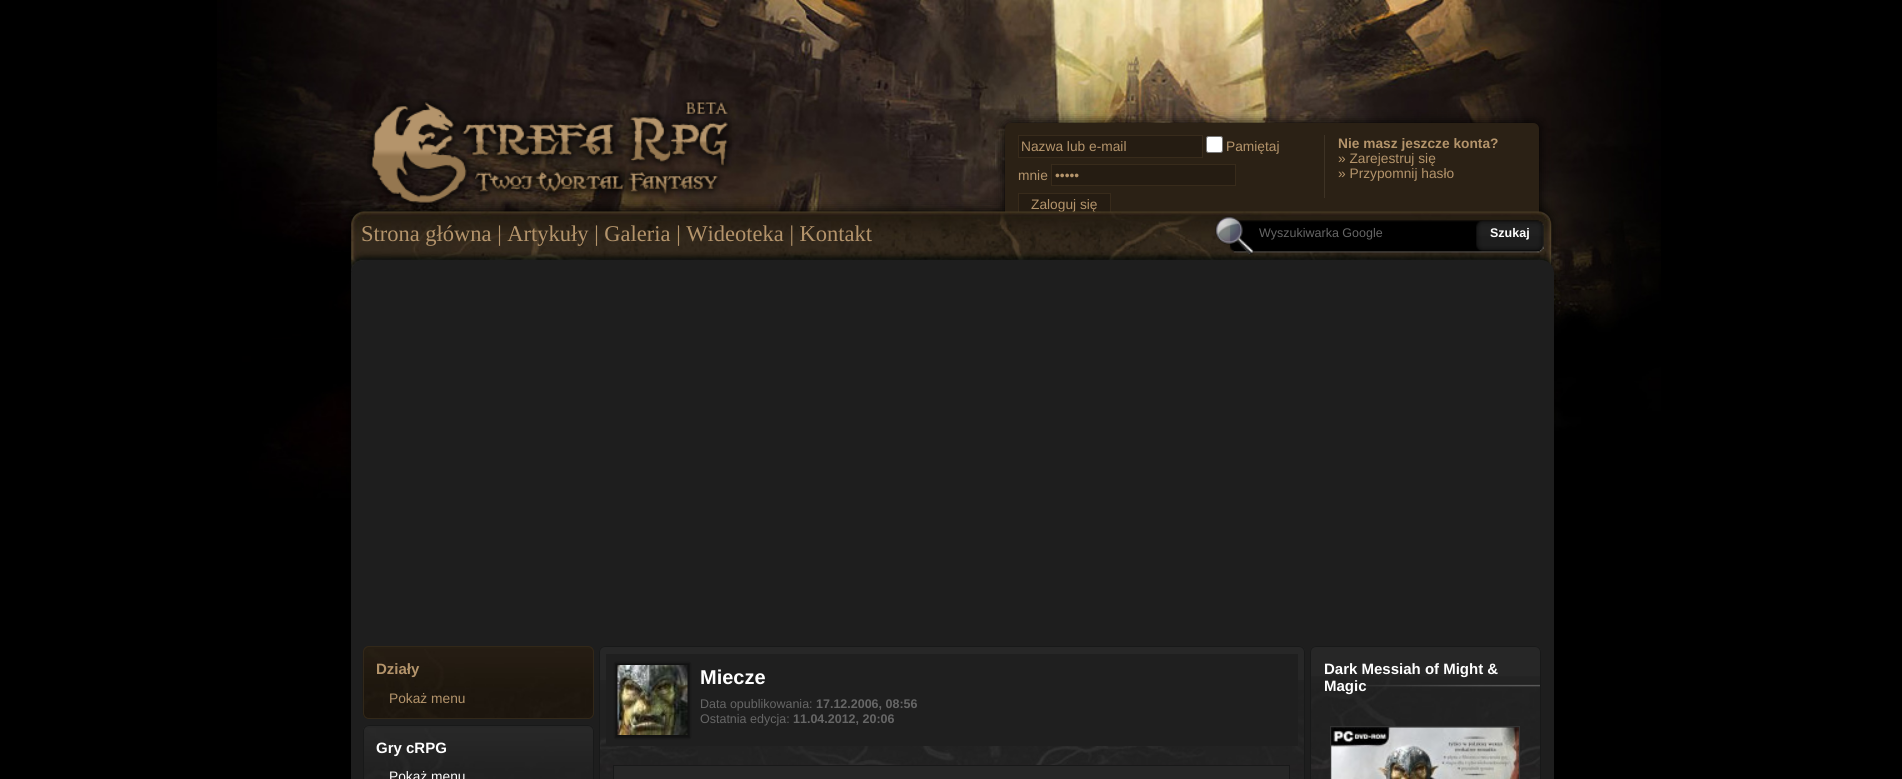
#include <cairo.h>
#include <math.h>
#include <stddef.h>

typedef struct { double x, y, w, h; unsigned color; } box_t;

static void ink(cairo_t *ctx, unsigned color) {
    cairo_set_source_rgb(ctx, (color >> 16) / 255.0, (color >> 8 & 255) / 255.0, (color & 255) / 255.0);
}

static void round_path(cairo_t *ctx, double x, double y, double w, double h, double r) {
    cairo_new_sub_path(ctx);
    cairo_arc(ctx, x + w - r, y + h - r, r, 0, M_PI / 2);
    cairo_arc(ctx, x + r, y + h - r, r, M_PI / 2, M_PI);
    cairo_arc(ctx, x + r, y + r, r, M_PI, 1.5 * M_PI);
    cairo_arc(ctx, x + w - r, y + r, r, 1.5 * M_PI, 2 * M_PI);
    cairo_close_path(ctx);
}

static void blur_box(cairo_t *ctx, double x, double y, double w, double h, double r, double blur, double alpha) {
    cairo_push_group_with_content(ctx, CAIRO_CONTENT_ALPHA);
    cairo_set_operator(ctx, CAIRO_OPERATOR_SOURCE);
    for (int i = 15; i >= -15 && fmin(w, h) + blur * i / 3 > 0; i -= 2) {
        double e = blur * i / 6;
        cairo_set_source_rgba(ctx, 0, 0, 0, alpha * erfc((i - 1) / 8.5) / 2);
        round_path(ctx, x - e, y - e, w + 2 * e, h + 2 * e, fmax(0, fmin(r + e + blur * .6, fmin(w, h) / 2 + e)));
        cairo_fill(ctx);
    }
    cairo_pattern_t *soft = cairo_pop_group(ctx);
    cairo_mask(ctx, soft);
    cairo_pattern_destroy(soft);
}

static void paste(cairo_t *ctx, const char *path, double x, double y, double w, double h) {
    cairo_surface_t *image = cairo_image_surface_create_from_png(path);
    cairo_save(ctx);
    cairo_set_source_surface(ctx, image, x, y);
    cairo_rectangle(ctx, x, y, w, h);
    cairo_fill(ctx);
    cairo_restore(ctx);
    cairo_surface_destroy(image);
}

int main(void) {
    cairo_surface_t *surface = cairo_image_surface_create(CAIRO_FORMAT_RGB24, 1902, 779);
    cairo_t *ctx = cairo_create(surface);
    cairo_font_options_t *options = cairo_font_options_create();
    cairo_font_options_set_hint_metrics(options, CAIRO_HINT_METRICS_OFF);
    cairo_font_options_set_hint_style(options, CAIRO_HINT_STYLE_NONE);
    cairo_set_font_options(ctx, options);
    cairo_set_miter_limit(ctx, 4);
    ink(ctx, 0x000000);
    cairo_paint(ctx);
    paste(ctx, "media/1.png", 217, 0, 1444, 499);
    blur_box(ctx, 351, 211, 1200, 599, 13, 6, 1);
    paste(ctx, "media/2.png", 367, 99, 365, 109);
    blur_box(ctx, 1005, 123, 534, 100, 6, 6, 1);
    ink(ctx, 0x2B2115);
    cairo_new_path(ctx);
    cairo_move_to(ctx, 1011, 123);
    cairo_line_to(ctx, 1533, 123);
    cairo_curve_to(ctx, 1536.5, 123, 1539, 125.5, 1539, 129);
    cairo_line_to(ctx, 1539, 223);
    cairo_line_to(ctx, 1005, 223);
    cairo_line_to(ctx, 1005, 129);
    cairo_curve_to(ctx, 1005, 125.5, 1007.5, 123, 1011, 123);
    cairo_close_path(ctx);
    cairo_fill(ctx);
    ink(ctx, 0x251C12);
    cairo_rectangle(ctx, 1018.5, 135.5, 184, 22);
    cairo_fill_preserve(ctx);
    ink(ctx, 0x382B1B);
    cairo_set_line_width(ctx, 1);
    cairo_stroke(ctx);
    cairo_select_font_face(ctx, "Liberation Sans", CAIRO_FONT_SLANT_NORMAL, CAIRO_FONT_WEIGHT_NORMAL);
    cairo_set_font_size(ctx, 13.75);
    ink(ctx, 0xB4946B);
    cairo_move_to(ctx, 1021, 151);
    cairo_show_text(ctx, "Nazwa lub e-mail");
    ink(ctx, 0xFFFFFF);
    round_path(ctx, 1206.5, 136.5, 16, 16, 2);
    cairo_fill_preserve(ctx);
    ink(ctx, 0x767676);
    cairo_stroke(ctx);
    ink(ctx, 0xB4946B);
    cairo_move_to(ctx, 1226, 151);
    cairo_show_text(ctx, "Pamiętaj");
    cairo_move_to(ctx, 1018, 180);
    cairo_show_text(ctx, "mnie");
    ink(ctx, 0x251C12);
    cairo_rectangle(ctx, 1051.5, 164.5, 184, 21);
    cairo_fill_preserve(ctx);
    ink(ctx, 0x382B1B);
    cairo_stroke(ctx);
    ink(ctx, 0xB4946B);
    cairo_move_to(ctx, 1055, 180);
    cairo_show_text(ctx, "•••••");
    ink(ctx, 0x251C12);
    cairo_rectangle(ctx, 1019, 194, 91, 18);
    cairo_fill(ctx);
    cairo_rectangle(ctx, 1018.5, 193.5, 92, 21);
    ink(ctx, 0x382B1B);
    cairo_stroke(ctx);
    ink(ctx, 0xB4946B);
    cairo_move_to(ctx, 1031, 209);
    cairo_show_text(ctx, "Zaloguj się");
    ink(ctx, 0x3E3325);
    cairo_rectangle(ctx, 1324, 135, 1, 63);
    cairo_fill(ctx);
    cairo_select_font_face(ctx, "Liberation Sans", CAIRO_FONT_SLANT_NORMAL, CAIRO_FONT_WEIGHT_BOLD);
    ink(ctx, 0xB4946B);
    cairo_move_to(ctx, 1338, 148);
    cairo_show_text(ctx, "Nie masz jeszcze konta?");
    cairo_select_font_face(ctx, "Liberation Sans", CAIRO_FONT_SLANT_NORMAL, CAIRO_FONT_WEIGHT_NORMAL);
    cairo_move_to(ctx, 1338, 163);
    cairo_show_text(ctx, "» Zarejestruj się");
    cairo_move_to(ctx, 1338, 178);
    cairo_show_text(ctx, "» Przypomnij hasło");
    paste(ctx, "media/3.png", 351, 211, 1201, 61);
    cairo_select_font_face(ctx, "Liberation Serif", CAIRO_FONT_SLANT_NORMAL, CAIRO_FONT_WEIGHT_NORMAL);
    cairo_set_font_size(ctx, 22.5);
    cairo_move_to(ctx, 361, 241);
    cairo_show_text(ctx, "Strona główna | Artykuły | Galeria | Wideoteka | Kontakt");
    paste(ctx, "media/4.png", 1215, 216, 329, 39);
    cairo_select_font_face(ctx, "Liberation Sans", CAIRO_FONT_SLANT_NORMAL, CAIRO_FONT_WEIGHT_NORMAL);
    cairo_set_font_size(ctx, 12.5);
    ink(ctx, 0x666666);
    cairo_move_to(ctx, 1259, 237);
    cairo_show_text(ctx, "Wyszukiwarka Google");
    cairo_select_font_face(ctx, "Liberation Sans", CAIRO_FONT_SLANT_NORMAL, CAIRO_FONT_WEIGHT_BOLD);
    ink(ctx, 0xFFFFFF);
    cairo_move_to(ctx, 1490, 237);
    cairo_show_text(ctx, "Szukaj");
    ink(ctx, 0x1E1E1E);
    round_path(ctx, 351, 260, 1203, 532, 13);
    cairo_fill(ctx);
    ink(ctx, 0x261E13);
    round_path(ctx, 363, 646, 231, 73, 6);
    cairo_fill(ctx);
    paste(ctx, "media/5.png", 362, 649, 232, 70);
    round_path(ctx, 363.5, 646.5, 230, 72, 5.5);
    ink(ctx, 0x322819);
    cairo_stroke(ctx);
    cairo_set_font_size(ctx, 15);
    ink(ctx, 0xB4946B);
    cairo_move_to(ctx, 376, 674);
    cairo_show_text(ctx, "Działy");
    cairo_select_font_face(ctx, "Liberation Sans", CAIRO_FONT_SLANT_NORMAL, CAIRO_FONT_WEIGHT_NORMAL);
    cairo_set_font_size(ctx, 13.75);
    cairo_move_to(ctx, 389, 703);
    cairo_show_text(ctx, "Pokaż menu");
    ink(ctx, 0x272727);
    round_path(ctx, 363, 725, 231, 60, 6);
    cairo_fill(ctx);
    paste(ctx, "media/6.png", 363, 728, 230, 51);
    round_path(ctx, 363.5, 725.5, 230, 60, 5.5);
    ink(ctx, 0x181919);
    cairo_stroke(ctx);
    cairo_select_font_face(ctx, "Liberation Sans", CAIRO_FONT_SLANT_NORMAL, CAIRO_FONT_WEIGHT_BOLD);
    cairo_set_font_size(ctx, 15);
    ink(ctx, 0xFFFFFF);
    cairo_move_to(ctx, 376, 753);
    cairo_show_text(ctx, "Gry cRPG");
    cairo_select_font_face(ctx, "Liberation Sans", CAIRO_FONT_SLANT_NORMAL, CAIRO_FONT_WEIGHT_NORMAL);
    cairo_set_font_size(ctx, 13.75);
    cairo_move_to(ctx, 389, 781);
    cairo_show_text(ctx, "Pokaż menu");
    ink(ctx, 0x272727);
    round_path(ctx, 599, 646, 706, 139, 6);
    cairo_fill(ctx);
    paste(ctx, "media/7.png", 600, 680, 704, 99);
    round_path(ctx, 599.5, 646.5, 705, 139, 5.5);
    ink(ctx, 0x181919);
    cairo_stroke(ctx);
    ink(ctx, 0x1F1F1F);
    cairo_rectangle(ctx, 606, 654, 692, 92);
    cairo_fill(ctx);
    ink(ctx, 0x111111);
    blur_box(ctx, 615, 663, 75, 75, 0, 1, 1);
    paste(ctx, "media/8.png", 617, 665, 71, 70);
    cairo_select_font_face(ctx, "Liberation Sans", CAIRO_FONT_SLANT_NORMAL, CAIRO_FONT_WEIGHT_BOLD);
    cairo_set_font_size(ctx, 20);
    ink(ctx, 0xFFFFFF);
    cairo_move_to(ctx, 700, 684);
    cairo_show_text(ctx, "Miecze");
    cairo_select_font_face(ctx, "Liberation Sans", CAIRO_FONT_SLANT_NORMAL, CAIRO_FONT_WEIGHT_NORMAL);
    cairo_set_font_size(ctx, 12.5);
    ink(ctx, 0x666666);
    cairo_move_to(ctx, 700, 708);
    cairo_show_text(ctx, "Data opublikowania:");
    cairo_select_font_face(ctx, "Liberation Sans", CAIRO_FONT_SLANT_NORMAL, CAIRO_FONT_WEIGHT_BOLD);
    cairo_move_to(ctx, 816, 708);
    cairo_show_text(ctx, "17.12.2006, 08:56");
    cairo_select_font_face(ctx, "Liberation Sans", CAIRO_FONT_SLANT_NORMAL, CAIRO_FONT_WEIGHT_NORMAL);
    cairo_move_to(ctx, 700, 723);
    cairo_show_text(ctx, "Ostatnia edycja:");
    cairo_select_font_face(ctx, "Liberation Sans", CAIRO_FONT_SLANT_NORMAL, CAIRO_FONT_WEIGHT_BOLD);
    cairo_move_to(ctx, 793, 723);
    cairo_show_text(ctx, "11.04.2012, 20:06");
    {
        static const box_t items[] = {
            {614, 766, 675, 13, 0x272727},
            {613, 765, 677, 1, 0x181919},
            {1289, 765, 1, 14, 0x181919},
            {613, 765, 1, 14, 0x181919},
        };
        for (size_t i = 0; i < sizeof items / sizeof *items; i++) {
            ink(ctx, items[i].color);
            cairo_rectangle(ctx, items[i].x, items[i].y, items[i].w, items[i].h);
            cairo_fill(ctx);
        }
    }
    ink(ctx, 0x272727);
    round_path(ctx, 1310, 646, 231, 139, 6);
    cairo_fill(ctx);
    paste(ctx, "media/9.png", 1311, 676, 229, 103);
    round_path(ctx, 1310.5, 646.5, 230, 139, 5.5);
    ink(ctx, 0x181919);
    cairo_stroke(ctx);
    paste(ctx, "media/10.png", 1325, 684, 215, 3);
    cairo_set_font_size(ctx, 15);
    ink(ctx, 0xFFFFFF);
    cairo_move_to(ctx, 1324, 674);
    cairo_show_text(ctx, "Dark Messiah of Might &");
    cairo_move_to(ctx, 1324, 691);
    cairo_show_text(ctx, "Magic");
    cairo_rectangle(ctx, 1330.5, 726.5, 189, 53);
    ink(ctx, 0x333333);
    cairo_stroke(ctx);
    paste(ctx, "media/11.png", 1331, 727, 188, 52);
    cairo_surface_write_to_png(surface, "image.png");
    cairo_font_options_destroy(options);
    cairo_destroy(ctx);
    cairo_surface_destroy(surface);
    return 0;
}
